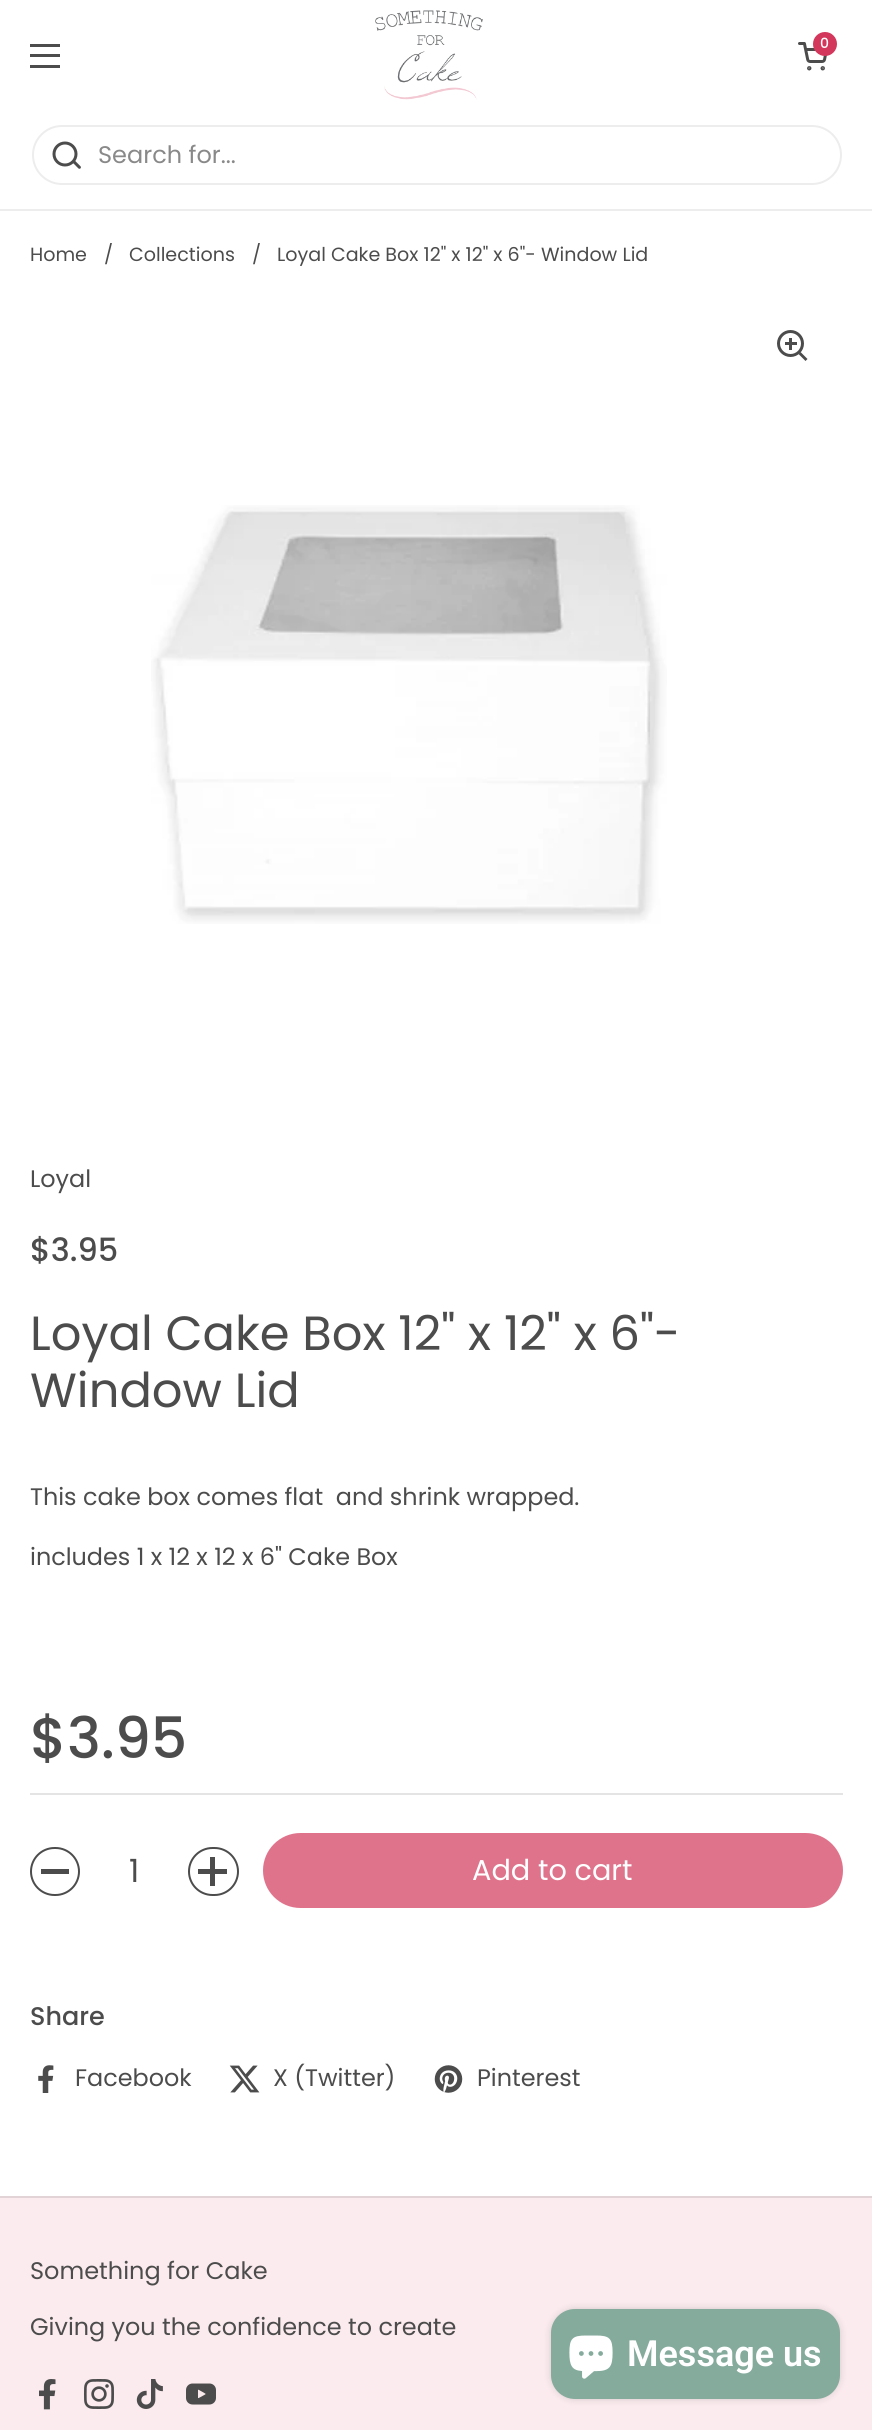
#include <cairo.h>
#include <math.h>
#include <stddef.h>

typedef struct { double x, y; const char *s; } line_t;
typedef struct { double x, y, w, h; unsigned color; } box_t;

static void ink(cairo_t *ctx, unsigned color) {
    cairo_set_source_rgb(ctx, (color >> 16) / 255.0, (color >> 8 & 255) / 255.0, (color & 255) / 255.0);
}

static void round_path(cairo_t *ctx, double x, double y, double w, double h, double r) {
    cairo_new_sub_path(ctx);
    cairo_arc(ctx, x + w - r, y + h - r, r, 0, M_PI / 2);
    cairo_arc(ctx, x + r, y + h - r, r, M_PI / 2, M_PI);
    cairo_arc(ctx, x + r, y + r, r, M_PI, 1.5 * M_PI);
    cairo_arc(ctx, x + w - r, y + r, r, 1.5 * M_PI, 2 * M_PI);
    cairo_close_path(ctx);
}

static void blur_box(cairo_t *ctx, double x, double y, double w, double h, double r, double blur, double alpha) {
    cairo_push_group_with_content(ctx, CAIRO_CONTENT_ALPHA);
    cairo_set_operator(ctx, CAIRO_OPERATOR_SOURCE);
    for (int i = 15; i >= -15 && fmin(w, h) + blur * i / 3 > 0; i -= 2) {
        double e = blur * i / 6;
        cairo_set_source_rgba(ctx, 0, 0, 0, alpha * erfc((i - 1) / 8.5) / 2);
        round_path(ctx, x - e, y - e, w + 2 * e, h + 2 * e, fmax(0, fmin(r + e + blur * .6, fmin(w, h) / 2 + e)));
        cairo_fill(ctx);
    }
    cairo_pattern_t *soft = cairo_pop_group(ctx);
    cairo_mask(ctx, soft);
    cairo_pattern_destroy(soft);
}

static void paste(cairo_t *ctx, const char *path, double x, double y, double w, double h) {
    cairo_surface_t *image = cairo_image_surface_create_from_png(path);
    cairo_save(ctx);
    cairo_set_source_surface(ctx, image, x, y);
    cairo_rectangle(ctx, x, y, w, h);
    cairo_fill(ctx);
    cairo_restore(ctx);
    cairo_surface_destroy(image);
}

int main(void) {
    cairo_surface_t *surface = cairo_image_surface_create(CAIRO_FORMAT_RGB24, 872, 2430);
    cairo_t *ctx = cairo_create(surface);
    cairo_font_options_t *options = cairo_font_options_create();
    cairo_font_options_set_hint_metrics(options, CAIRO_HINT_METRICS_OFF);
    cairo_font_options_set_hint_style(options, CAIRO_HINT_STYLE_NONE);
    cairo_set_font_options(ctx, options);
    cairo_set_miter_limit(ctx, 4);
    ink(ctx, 0xFFFFFF);
    cairo_paint(ctx);
    paste(ctx, "media/1.png", 375, 10, 108, 90);
    paste(ctx, "media/2.png", 798, 42, 29, 29);
    ink(ctx, 0xD3375B);
    cairo_arc(ctx, 825, 44, 12, 0, 2 * M_PI);
    cairo_fill(ctx);
    cairo_select_font_face(ctx, "Poppins Medium", CAIRO_FONT_SLANT_NORMAL, CAIRO_FONT_WEIGHT_NORMAL);
    cairo_set_font_size(ctx, 14);
    ink(ctx, 0xFFFFFF);
    cairo_move_to(ctx, 820, 48);
    cairo_show_text(ctx, "0");
    {
        static const box_t items[] = {
            {30, 44, 30, 3, 0x4C4C4C},
            {30, 54, 30, 3, 0x4C4C4C},
            {30, 65, 30, 3, 0x4C4C4C},
            {0, 209, 872, 2, 0xEDEDED},
        };
        for (size_t i = 0; i < sizeof items / sizeof *items; i++) {
            ink(ctx, items[i].color);
            cairo_rectangle(ctx, items[i].x, items[i].y, items[i].w, items[i].h);
            cairo_fill(ctx);
        }
    }
    round_path(ctx, 33, 126, 808, 58, 29);
    cairo_stroke(ctx);
    paste(ctx, "media/3.png", 52, 141, 29, 28);
    cairo_select_font_face(ctx, "Poppins", CAIRO_FONT_SLANT_NORMAL, CAIRO_FONT_WEIGHT_NORMAL);
    cairo_set_font_size(ctx, 24);
    ink(ctx, 0x898989);
    cairo_move_to(ctx, 98, 163);
    cairo_show_text(ctx, "Search for...");
    cairo_set_font_size(ctx, 19.1);
    ink(ctx, 0x4C4C4C);
    {
        static const line_t items[] = {
            {30, 261, "Home"},
            {104, 261, "/"},
            {129, 261, "Collections"},
            {252, 261, "/"},
            {277, 261, "Loyal Cake Box 12\" x 12\" x 6\"- Window Lid"},
        };
        for (size_t i = 0; i < sizeof items / sizeof *items; i++) {
            cairo_move_to(ctx, items[i].x, items[i].y);
            cairo_show_text(ctx, items[i].s);
        }
    }
    cairo_new_path(ctx);
    cairo_arc(ctx, 790.5, 343.5, 12, 0, 2 * M_PI);
    cairo_set_line_width(ctx, 3);
    cairo_stroke(ctx);
    cairo_rectangle(ctx, 789, 338, 3, 12);
    cairo_fill(ctx);
    cairo_rectangle(ctx, 785, 342, 12, 3);
    cairo_fill(ctx);
    cairo_new_path(ctx);
    cairo_move_to(ctx, 798.5, 354);
    cairo_line_to(ctx, 800.5, 352);
    cairo_line_to(ctx, 807.5, 359);
    cairo_line_to(ctx, 805.5, 361);
    cairo_close_path(ctx);
    cairo_fill(ctx);
    paste(ctx, "media/4.png", 151, 505, 516, 419);
    cairo_set_font_size(ctx, 23.9);
    cairo_move_to(ctx, 30, 1187);
    cairo_show_text(ctx, "Loyal");
    cairo_select_font_face(ctx, "Poppins Medium", CAIRO_FONT_SLANT_NORMAL, CAIRO_FONT_WEIGHT_NORMAL);
    cairo_set_font_size(ctx, 32);
    cairo_move_to(ctx, 30, 1261);
    cairo_show_text(ctx, "$3.95");
    cairo_select_font_face(ctx, "Poppins", CAIRO_FONT_SLANT_NORMAL, CAIRO_FONT_WEIGHT_NORMAL);
    cairo_set_font_size(ctx, 48);
    cairo_move_to(ctx, 30, 1350);
    cairo_show_text(ctx, "Loyal Cake Box 12\" x 12\" x 6\"-");
    cairo_move_to(ctx, 30, 1407);
    cairo_show_text(ctx, "Window Lid");
    cairo_set_font_size(ctx, 23.9);
    cairo_move_to(ctx, 30, 1505);
    cairo_show_text(ctx, "This cake box comes flat  and shrink wrapped.");
    cairo_move_to(ctx, 30, 1565);
    cairo_show_text(ctx, "includes 1 x 12 x 12 x 6\" Cake Box");
    cairo_select_font_face(ctx, "Poppins Medium", CAIRO_FONT_SLANT_NORMAL, CAIRO_FONT_WEIGHT_NORMAL);
    cairo_set_font_size(ctx, 57);
    cairo_move_to(ctx, 30, 1758);
    cairo_show_text(ctx, "$3.95");
    ink(ctx, 0xE4E4E4);
    cairo_rectangle(ctx, 30, 1793, 813, 2);
    cairo_fill(ctx);
    round_path(ctx, 31, 1848, 48, 47, 23.5);
    ink(ctx, 0x4C4C4C);
    cairo_set_line_width(ctx, 2);
    cairo_stroke(ctx);
    cairo_rectangle(ctx, 41, 1869, 28, 5);
    cairo_fill(ctx);
    cairo_select_font_face(ctx, "Poppins", CAIRO_FONT_SLANT_NORMAL, CAIRO_FONT_WEIGHT_NORMAL);
    cairo_set_font_size(ctx, 32);
    cairo_move_to(ctx, 129, 1882);
    cairo_show_text(ctx, "1");
    round_path(ctx, 189, 1848, 49, 47, 23.5);
    cairo_stroke(ctx);
    cairo_rectangle(ctx, 210, 1857, 5, 29);
    cairo_fill(ctx);
    cairo_rectangle(ctx, 198, 1869, 29, 5);
    cairo_fill(ctx);
    ink(ctx, 0xE0738C);
    round_path(ctx, 264, 1834, 578, 73, 36.5);
    cairo_fill_preserve(ctx);
    cairo_stroke(ctx);
    cairo_set_font_size(ctx, 28.75);
    ink(ctx, 0xFFFFFF);
    cairo_move_to(ctx, 472, 1880);
    cairo_show_text(ctx, "Add to cart");
    cairo_select_font_face(ctx, "Poppins Medium", CAIRO_FONT_SLANT_NORMAL, CAIRO_FONT_WEIGHT_NORMAL);
    cairo_set_font_size(ctx, 25.5);
    ink(ctx, 0x4C4C4C);
    cairo_move_to(ctx, 30, 2025);
    cairo_show_text(ctx, "Share");
    paste(ctx, "media/5.png", 38, 2065, 16, 28);
    cairo_select_font_face(ctx, "Poppins", CAIRO_FONT_SLANT_NORMAL, CAIRO_FONT_WEIGHT_NORMAL);
    cairo_set_font_size(ctx, 23.9);
    cairo_move_to(ctx, 75, 2086);
    cairo_show_text(ctx, "Facebook");
    paste(ctx, "media/6.png", 229, 2065, 31, 28);
    cairo_move_to(ctx, 273, 2086);
    cairo_show_text(ctx, "X (Twitter)");
    paste(ctx, "media/7.png", 434, 2065, 29, 28);
    cairo_move_to(ctx, 477, 2086);
    cairo_show_text(ctx, "Pinterest");
    ink(ctx, 0xFBEBEE);
    cairo_rectangle(ctx, 0, 2198, 872, 232);
    cairo_fill(ctx);
    ink(ctx, 0xE1D3D6);
    cairo_rectangle(ctx, 0, 2196, 872, 2);
    cairo_fill(ctx);
    cairo_set_font_size(ctx, 24);
    ink(ctx, 0x4C4C4C);
    cairo_move_to(ctx, 30, 2279);
    cairo_show_text(ctx, "Something for Cake");
    cairo_set_font_size(ctx, 23.9);
    cairo_move_to(ctx, 30, 2335);
    cairo_show_text(ctx, "Giving you the confidence to create");
    paste(ctx, "media/8.png", 39, 2379, 17, 31);
    paste(ctx, "media/9.png", 84, 2379, 30, 30);
    paste(ctx, "media/10.png", 136, 2379, 27, 30);
    paste(ctx, "media/11.png", 186, 2383, 30, 22);
    ink(ctx, 0x000000);
    blur_box(ctx, 551, 2309, 289, 90, 24, 4, 0.15);
    ink(ctx, 0x85AB9D);
    round_path(ctx, 551, 2309, 289, 90, 24);
    cairo_fill(ctx);
    paste(ctx, "media/12.png", 569, 2335, 44, 44);
    cairo_select_font_face(ctx, "Roboto SemiBold", CAIRO_FONT_SLANT_NORMAL, CAIRO_FONT_WEIGHT_NORMAL);
    cairo_set_font_size(ctx, 36);
    ink(ctx, 0xFFFFFF);
    cairo_move_to(ctx, 627, 2366);
    cairo_show_text(ctx, "Message us");
    cairo_surface_write_to_png(surface, "image.png");
    cairo_font_options_destroy(options);
    cairo_destroy(ctx);
    cairo_surface_destroy(surface);
    return 0;
}
